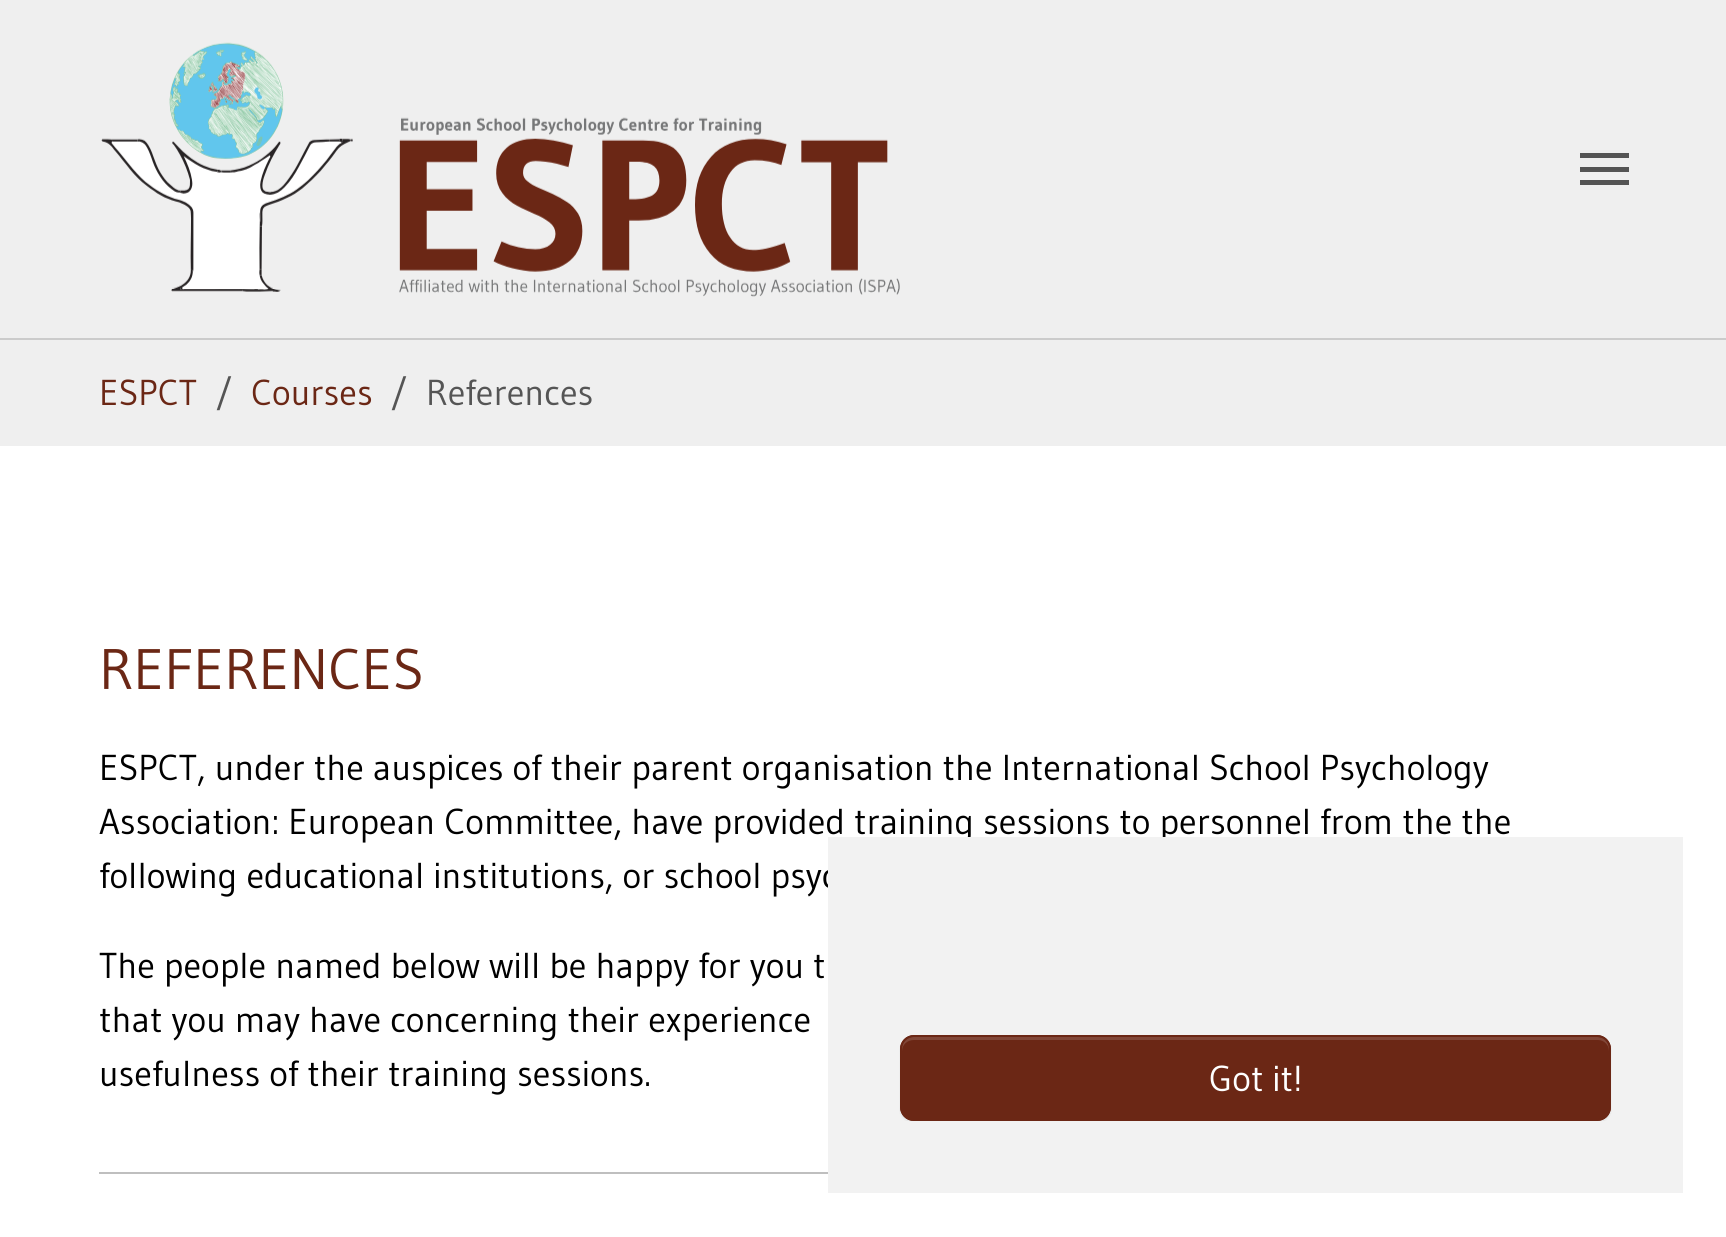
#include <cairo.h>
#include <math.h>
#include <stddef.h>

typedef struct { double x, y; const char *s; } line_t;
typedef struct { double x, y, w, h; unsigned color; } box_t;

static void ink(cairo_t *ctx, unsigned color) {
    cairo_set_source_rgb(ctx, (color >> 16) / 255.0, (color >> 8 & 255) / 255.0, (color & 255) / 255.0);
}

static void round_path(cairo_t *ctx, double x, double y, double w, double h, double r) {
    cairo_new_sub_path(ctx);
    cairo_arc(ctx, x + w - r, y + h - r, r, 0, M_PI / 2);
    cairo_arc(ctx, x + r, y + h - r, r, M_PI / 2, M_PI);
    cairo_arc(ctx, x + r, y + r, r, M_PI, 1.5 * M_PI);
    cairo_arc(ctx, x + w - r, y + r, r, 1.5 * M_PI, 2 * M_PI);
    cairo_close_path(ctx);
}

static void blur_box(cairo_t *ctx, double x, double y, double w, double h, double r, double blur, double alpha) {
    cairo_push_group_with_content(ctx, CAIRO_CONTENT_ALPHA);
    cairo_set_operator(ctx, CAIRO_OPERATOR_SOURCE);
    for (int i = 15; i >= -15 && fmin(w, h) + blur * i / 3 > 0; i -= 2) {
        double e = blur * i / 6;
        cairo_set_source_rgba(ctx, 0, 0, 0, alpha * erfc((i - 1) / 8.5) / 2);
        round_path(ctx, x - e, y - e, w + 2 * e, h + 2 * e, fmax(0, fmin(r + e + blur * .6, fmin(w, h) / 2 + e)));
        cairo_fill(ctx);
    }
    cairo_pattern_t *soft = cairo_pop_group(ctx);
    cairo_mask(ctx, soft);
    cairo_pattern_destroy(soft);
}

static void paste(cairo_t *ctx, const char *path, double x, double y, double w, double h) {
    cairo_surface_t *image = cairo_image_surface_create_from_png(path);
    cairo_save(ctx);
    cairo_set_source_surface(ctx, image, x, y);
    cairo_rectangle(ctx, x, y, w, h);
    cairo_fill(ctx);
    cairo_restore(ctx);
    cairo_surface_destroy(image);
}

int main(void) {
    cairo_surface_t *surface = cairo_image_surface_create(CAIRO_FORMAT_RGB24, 1726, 1237);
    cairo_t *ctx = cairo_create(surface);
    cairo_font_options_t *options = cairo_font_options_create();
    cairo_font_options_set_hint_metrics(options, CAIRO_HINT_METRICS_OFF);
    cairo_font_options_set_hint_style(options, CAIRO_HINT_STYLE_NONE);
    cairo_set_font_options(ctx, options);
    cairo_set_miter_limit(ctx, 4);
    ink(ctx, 0xFFFFFF);
    cairo_paint(ctx);
    ink(ctx, 0xCBCBCB);
    cairo_rectangle(ctx, 0, 338, 1726, 2);
    cairo_fill(ctx);
    ink(ctx, 0xEFEFEF);
    cairo_rectangle(ctx, 0, 0, 1726, 338);
    cairo_fill(ctx);
    paste(ctx, "media/1.png", 101, 42, 799, 255);
    {
        static const box_t items[] = {
            {1580, 167, 49, 5, 0x545454},
            {1580, 153, 49, 5, 0x545454},
            {1580, 180, 49, 5, 0x545454},
            {0, 340, 1726, 106, 0xEFEFEF},
        };
        for (size_t i = 0; i < sizeof items / sizeof *items; i++) {
            ink(ctx, items[i].color);
            cairo_rectangle(ctx, items[i].x, items[i].y, items[i].w, items[i].h);
            cairo_fill(ctx);
        }
    }
    cairo_select_font_face(ctx, "Gudea", CAIRO_FONT_SLANT_NORMAL, CAIRO_FONT_WEIGHT_NORMAL);
    cairo_set_font_size(ctx, 36);
    ink(ctx, 0x6B2715);
    cairo_move_to(ctx, 99, 405);
    cairo_show_text(ctx, "ESPCT");
    ink(ctx, 0x555555);
    cairo_move_to(ctx, 215, 405);
    cairo_show_text(ctx, "/");
    ink(ctx, 0x6B2715);
    cairo_move_to(ctx, 251, 405);
    cairo_show_text(ctx, "Courses");
    ink(ctx, 0x555555);
    cairo_move_to(ctx, 390, 405);
    cairo_show_text(ctx, "/");
    cairo_move_to(ctx, 426, 405);
    cairo_show_text(ctx, "References");
    cairo_set_font_size(ctx, 57);
    ink(ctx, 0x6B2715);
    cairo_move_to(ctx, 99, 689);
    cairo_show_text(ctx, "REFERENCES");
    cairo_set_font_size(ctx, 36);
    ink(ctx, 0x000000);
    {
        static const line_t items[] = {
            {99, 780, "ESPCT, under the auspices of their parent organisation the International School Psychology"},
            {99, 834, "Association: European Committee, have provided training sessions to personnel from the the"},
            {99, 888, "following educational institutions, or school psyc"},
            {99, 978, "The people named below will be happy for you t"},
            {99, 1032, "that you may have concerning their experience"},
            {99, 1086, "usefulness of their training sessions."},
        };
        for (size_t i = 0; i < sizeof items / sizeof *items; i++) {
            cairo_move_to(ctx, items[i].x, items[i].y);
            cairo_show_text(ctx, items[i].s);
        }
    }
    ink(ctx, 0xBFBFBF);
    cairo_rectangle(ctx, 99, 1172, 729, 2);
    cairo_fill(ctx);
    ink(ctx, 0xF2F2F2);
    cairo_rectangle(ctx, 828, 837, 855, 356);
    cairo_fill(ctx);
    cairo_save(ctx);
    cairo_rectangle(ctx, 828, 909, 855, 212);
    cairo_clip(ctx);
    ink(ctx, 0x000000);
    blur_box(ctx, 900, 1037, 711, 86, 14, 1, 0.07);
    cairo_restore(ctx);
    ink(ctx, 0x6B2715);
    round_path(ctx, 900, 1035, 711, 86, 14);
    cairo_fill(ctx);
    ink(ctx, 0x814738);
    cairo_new_path(ctx);
    cairo_move_to(ctx, 914, 1040);
    cairo_line_to(ctx, 1598, 1040);
    cairo_curve_to(ctx, 1604, 1040, 1609, 1045, 1609, 1051);
    cairo_line_to(ctx, 1609, 1048);
    cairo_curve_to(ctx, 1609, 1042, 1604, 1037, 1598, 1037);
    cairo_line_to(ctx, 913, 1037);
    cairo_curve_to(ctx, 907, 1037, 902, 1042, 902, 1048);
    cairo_line_to(ctx, 902, 1051);
    cairo_curve_to(ctx, 902, 1045, 907, 1040, 914, 1040);
    cairo_close_path(ctx);
    cairo_fill(ctx);
    round_path(ctx, 901, 1036, 709, 84, 13);
    ink(ctx, 0x6B2715);
    cairo_stroke(ctx);
    ink(ctx, 0xFFFFFF);
    cairo_move_to(ctx, 1209, 1091);
    cairo_show_text(ctx, "Got it!");
    cairo_surface_write_to_png(surface, "image.png");
    cairo_font_options_destroy(options);
    cairo_destroy(ctx);
    cairo_surface_destroy(surface);
    return 0;
}
